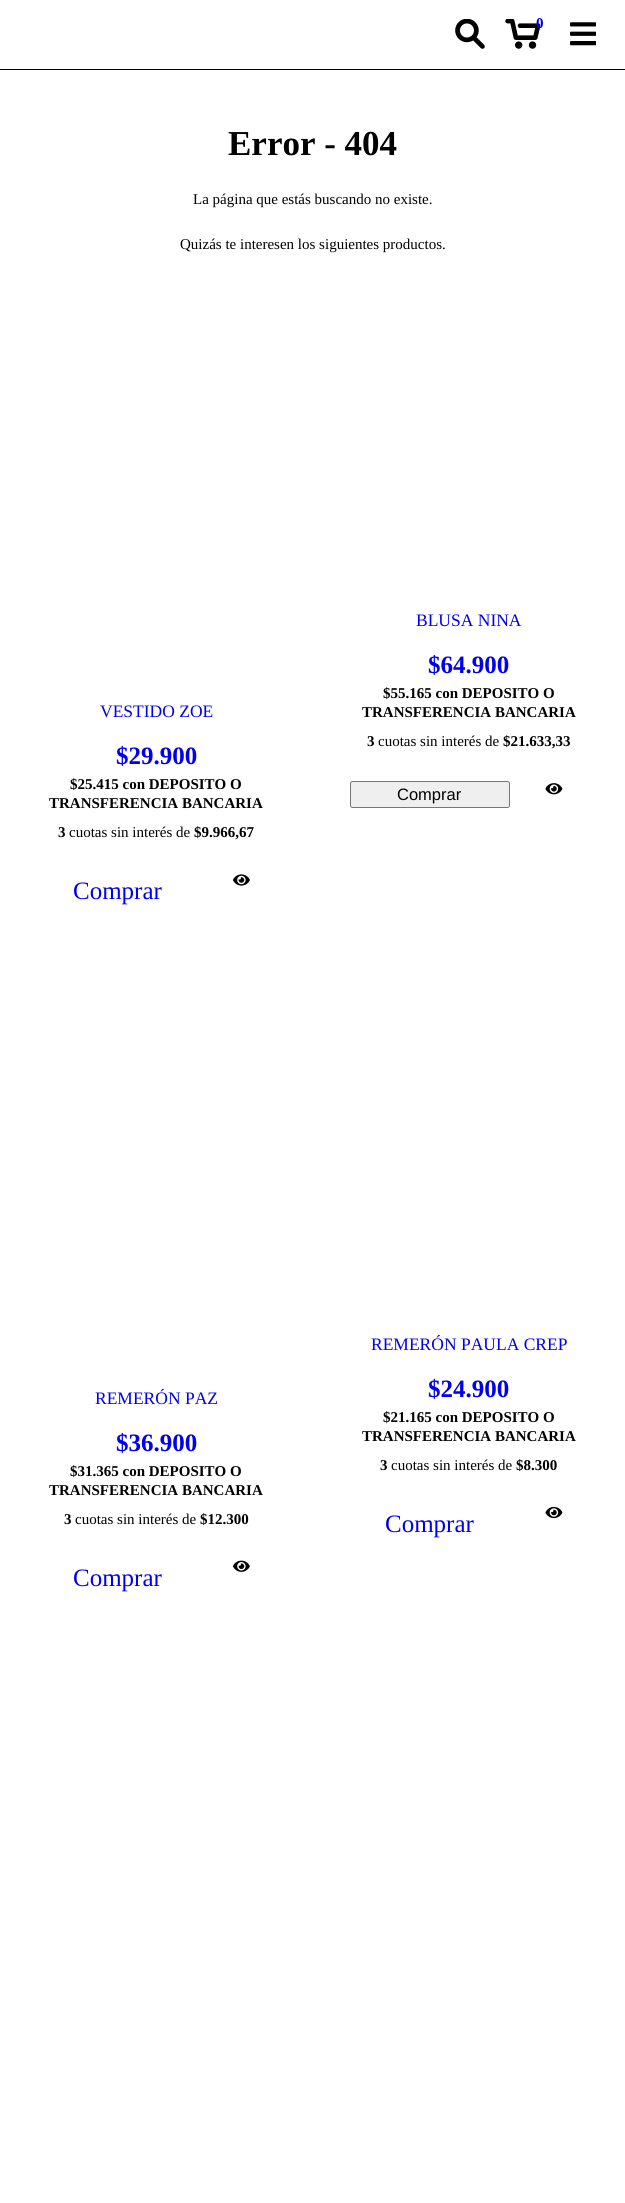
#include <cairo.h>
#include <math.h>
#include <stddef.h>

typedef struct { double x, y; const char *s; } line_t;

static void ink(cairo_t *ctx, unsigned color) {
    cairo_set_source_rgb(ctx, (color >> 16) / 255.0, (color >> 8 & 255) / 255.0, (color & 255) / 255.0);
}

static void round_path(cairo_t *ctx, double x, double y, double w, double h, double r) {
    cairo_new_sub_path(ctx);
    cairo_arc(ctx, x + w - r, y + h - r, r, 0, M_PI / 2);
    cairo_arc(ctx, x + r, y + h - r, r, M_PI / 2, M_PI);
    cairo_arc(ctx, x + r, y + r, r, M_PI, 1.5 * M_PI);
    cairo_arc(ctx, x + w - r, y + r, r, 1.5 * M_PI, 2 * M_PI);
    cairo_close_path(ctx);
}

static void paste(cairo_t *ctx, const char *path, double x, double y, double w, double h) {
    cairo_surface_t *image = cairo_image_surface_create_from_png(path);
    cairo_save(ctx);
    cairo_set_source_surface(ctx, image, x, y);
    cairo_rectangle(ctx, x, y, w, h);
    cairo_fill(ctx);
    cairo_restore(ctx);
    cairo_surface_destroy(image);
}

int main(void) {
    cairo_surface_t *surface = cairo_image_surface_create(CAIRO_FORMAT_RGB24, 625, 2203);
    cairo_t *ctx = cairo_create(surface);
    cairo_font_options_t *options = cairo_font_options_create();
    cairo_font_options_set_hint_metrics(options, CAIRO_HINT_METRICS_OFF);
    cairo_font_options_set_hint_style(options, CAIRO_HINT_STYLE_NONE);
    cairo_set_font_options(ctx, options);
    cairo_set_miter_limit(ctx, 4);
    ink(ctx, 0xFFFFFF);
    cairo_paint(ctx);
    paste(ctx, "media/1.png", 455, 19, 30, 30);
    paste(ctx, "media/2.png", 505, 19, 36, 30);
    cairo_select_font_face(ctx, "Liberation Serif", CAIRO_FONT_SLANT_NORMAL, CAIRO_FONT_WEIGHT_BOLD);
    cairo_set_font_size(ctx, 15);
    ink(ctx, 0x0000EE);
    cairo_move_to(ctx, 536, 28);
    cairo_show_text(ctx, "0");
    paste(ctx, "media/3.png", 570, 22, 26, 24);
    ink(ctx, 0x000000);
    cairo_rectangle(ctx, 0, 69, 625, 1);
    cairo_fill(ctx);
    cairo_set_font_size(ctx, 35);
    cairo_move_to(ctx, 228, 155);
    cairo_show_text(ctx, "Error - 404");
    cairo_select_font_face(ctx, "Liberation Serif", CAIRO_FONT_SLANT_NORMAL, CAIRO_FONT_WEIGHT_NORMAL);
    cairo_set_font_size(ctx, 15);
    cairo_move_to(ctx, 193, 204);
    cairo_show_text(ctx, "La página que estás buscando no existe.");
    cairo_move_to(ctx, 180, 249);
    cairo_show_text(ctx, "Quizás te interesen los siguientes productos.");
    cairo_set_font_size(ctx, 17.5);
    ink(ctx, 0x0000EE);
    cairo_move_to(ctx, 100, 717);
    cairo_show_text(ctx, "VESTIDO ZOE");
    cairo_select_font_face(ctx, "Liberation Serif", CAIRO_FONT_SLANT_NORMAL, CAIRO_FONT_WEIGHT_BOLD);
    cairo_set_font_size(ctx, 25);
    cairo_move_to(ctx, 116, 764);
    cairo_show_text(ctx, "$29.900");
    cairo_set_font_size(ctx, 15);
    ink(ctx, 0x000000);
    {
        static const line_t items[] = {
            {70, 789, "$25.415 con DEPOSITO O"},
            {49, 808, "TRANSFERENCIA BANCARIA"},
            {58, 837, "3"},
        };
        for (size_t i = 0; i < sizeof items / sizeof *items; i++) {
            cairo_move_to(ctx, items[i].x, items[i].y);
            cairo_show_text(ctx, items[i].s);
        }
    }
    cairo_select_font_face(ctx, "Liberation Serif", CAIRO_FONT_SLANT_NORMAL, CAIRO_FONT_WEIGHT_NORMAL);
    cairo_move_to(ctx, 69, 837);
    cairo_show_text(ctx, "cuotas sin interés de");
    cairo_select_font_face(ctx, "Liberation Serif", CAIRO_FONT_SLANT_NORMAL, CAIRO_FONT_WEIGHT_BOLD);
    cairo_move_to(ctx, 194, 837);
    cairo_show_text(ctx, "$9.966,67");
    paste(ctx, "media/4.png", 233, 874, 17, 12);
    cairo_select_font_face(ctx, "Liberation Serif", CAIRO_FONT_SLANT_NORMAL, CAIRO_FONT_WEIGHT_NORMAL);
    cairo_set_font_size(ctx, 25);
    ink(ctx, 0x0000EE);
    cairo_move_to(ctx, 73, 899);
    cairo_show_text(ctx, "Comprar");
    cairo_set_font_size(ctx, 17.5);
    cairo_move_to(ctx, 416, 626);
    cairo_show_text(ctx, "BLUSA NINA");
    cairo_select_font_face(ctx, "Liberation Serif", CAIRO_FONT_SLANT_NORMAL, CAIRO_FONT_WEIGHT_BOLD);
    cairo_set_font_size(ctx, 25);
    cairo_move_to(ctx, 428, 673);
    cairo_show_text(ctx, "$64.900");
    cairo_set_font_size(ctx, 15);
    ink(ctx, 0x000000);
    {
        static const line_t items[] = {
            {383, 698, "$55.165 con DEPOSITO O"},
            {362, 717, "TRANSFERENCIA BANCARIA"},
            {367, 746, "3"},
        };
        for (size_t i = 0; i < sizeof items / sizeof *items; i++) {
            cairo_move_to(ctx, items[i].x, items[i].y);
            cairo_show_text(ctx, items[i].s);
        }
    }
    cairo_select_font_face(ctx, "Liberation Serif", CAIRO_FONT_SLANT_NORMAL, CAIRO_FONT_WEIGHT_NORMAL);
    cairo_move_to(ctx, 378, 746);
    cairo_show_text(ctx, "cuotas sin interés de");
    cairo_select_font_face(ctx, "Liberation Serif", CAIRO_FONT_SLANT_NORMAL, CAIRO_FONT_WEIGHT_BOLD);
    cairo_move_to(ctx, 503, 746);
    cairo_show_text(ctx, "$21.633,33");
    ink(ctx, 0xEFEFEF);
    round_path(ctx, 350.5, 781.5, 159, 26, 2);
    cairo_fill_preserve(ctx);
    ink(ctx, 0x767676);
    cairo_set_line_width(ctx, 1);
    cairo_stroke(ctx);
    cairo_select_font_face(ctx, "Liberation Sans", CAIRO_FONT_SLANT_NORMAL, CAIRO_FONT_WEIGHT_NORMAL);
    cairo_set_font_size(ctx, 16.5);
    ink(ctx, 0x000000);
    cairo_move_to(ctx, 397, 800);
    cairo_show_text(ctx, "Comprar");
    paste(ctx, "media/5.png", 545, 783, 18, 12);
    cairo_select_font_face(ctx, "Liberation Serif", CAIRO_FONT_SLANT_NORMAL, CAIRO_FONT_WEIGHT_NORMAL);
    cairo_set_font_size(ctx, 17.5);
    ink(ctx, 0x0000EE);
    cairo_move_to(ctx, 95, 1404);
    cairo_show_text(ctx, "REMERÓN PAZ");
    cairo_select_font_face(ctx, "Liberation Serif", CAIRO_FONT_SLANT_NORMAL, CAIRO_FONT_WEIGHT_BOLD);
    cairo_set_font_size(ctx, 25);
    cairo_move_to(ctx, 116, 1451);
    cairo_show_text(ctx, "$36.900");
    cairo_set_font_size(ctx, 15);
    ink(ctx, 0x000000);
    {
        static const line_t items[] = {
            {70, 1476, "$31.365 con DEPOSITO O"},
            {49, 1495, "TRANSFERENCIA BANCARIA"},
            {64, 1524, "3"},
        };
        for (size_t i = 0; i < sizeof items / sizeof *items; i++) {
            cairo_move_to(ctx, items[i].x, items[i].y);
            cairo_show_text(ctx, items[i].s);
        }
    }
    cairo_select_font_face(ctx, "Liberation Serif", CAIRO_FONT_SLANT_NORMAL, CAIRO_FONT_WEIGHT_NORMAL);
    cairo_move_to(ctx, 75, 1524);
    cairo_show_text(ctx, "cuotas sin interés de");
    cairo_select_font_face(ctx, "Liberation Serif", CAIRO_FONT_SLANT_NORMAL, CAIRO_FONT_WEIGHT_BOLD);
    cairo_move_to(ctx, 200, 1524);
    cairo_show_text(ctx, "$12.300");
    paste(ctx, "media/6.png", 233, 1560, 17, 12);
    cairo_select_font_face(ctx, "Liberation Serif", CAIRO_FONT_SLANT_NORMAL, CAIRO_FONT_WEIGHT_NORMAL);
    cairo_set_font_size(ctx, 25);
    ink(ctx, 0x0000EE);
    cairo_move_to(ctx, 73, 1586);
    cairo_show_text(ctx, "Comprar");
    cairo_set_font_size(ctx, 17.5);
    cairo_move_to(ctx, 371, 1350);
    cairo_show_text(ctx, "REMERÓN PAULA CREP");
    cairo_select_font_face(ctx, "Liberation Serif", CAIRO_FONT_SLANT_NORMAL, CAIRO_FONT_WEIGHT_BOLD);
    cairo_set_font_size(ctx, 25);
    cairo_move_to(ctx, 428, 1397);
    cairo_show_text(ctx, "$24.900");
    cairo_set_font_size(ctx, 15);
    ink(ctx, 0x000000);
    {
        static const line_t items[] = {
            {383, 1422, "$21.165 con DEPOSITO O"},
            {362, 1441, "TRANSFERENCIA BANCARIA"},
            {380, 1470, "3"},
        };
        for (size_t i = 0; i < sizeof items / sizeof *items; i++) {
            cairo_move_to(ctx, items[i].x, items[i].y);
            cairo_show_text(ctx, items[i].s);
        }
    }
    cairo_select_font_face(ctx, "Liberation Serif", CAIRO_FONT_SLANT_NORMAL, CAIRO_FONT_WEIGHT_NORMAL);
    cairo_move_to(ctx, 391, 1470);
    cairo_show_text(ctx, "cuotas sin interés de");
    cairo_select_font_face(ctx, "Liberation Serif", CAIRO_FONT_SLANT_NORMAL, CAIRO_FONT_WEIGHT_BOLD);
    cairo_move_to(ctx, 516, 1470);
    cairo_show_text(ctx, "$8.300");
    paste(ctx, "media/7.png", 545, 1506, 18, 13);
    cairo_select_font_face(ctx, "Liberation Serif", CAIRO_FONT_SLANT_NORMAL, CAIRO_FONT_WEIGHT_NORMAL);
    cairo_set_font_size(ctx, 25);
    ink(ctx, 0x0000EE);
    cairo_move_to(ctx, 385, 1532);
    cairo_show_text(ctx, "Comprar");
    cairo_surface_write_to_png(surface, "image.png");
    cairo_font_options_destroy(options);
    cairo_destroy(ctx);
    cairo_surface_destroy(surface);
    return 0;
}
